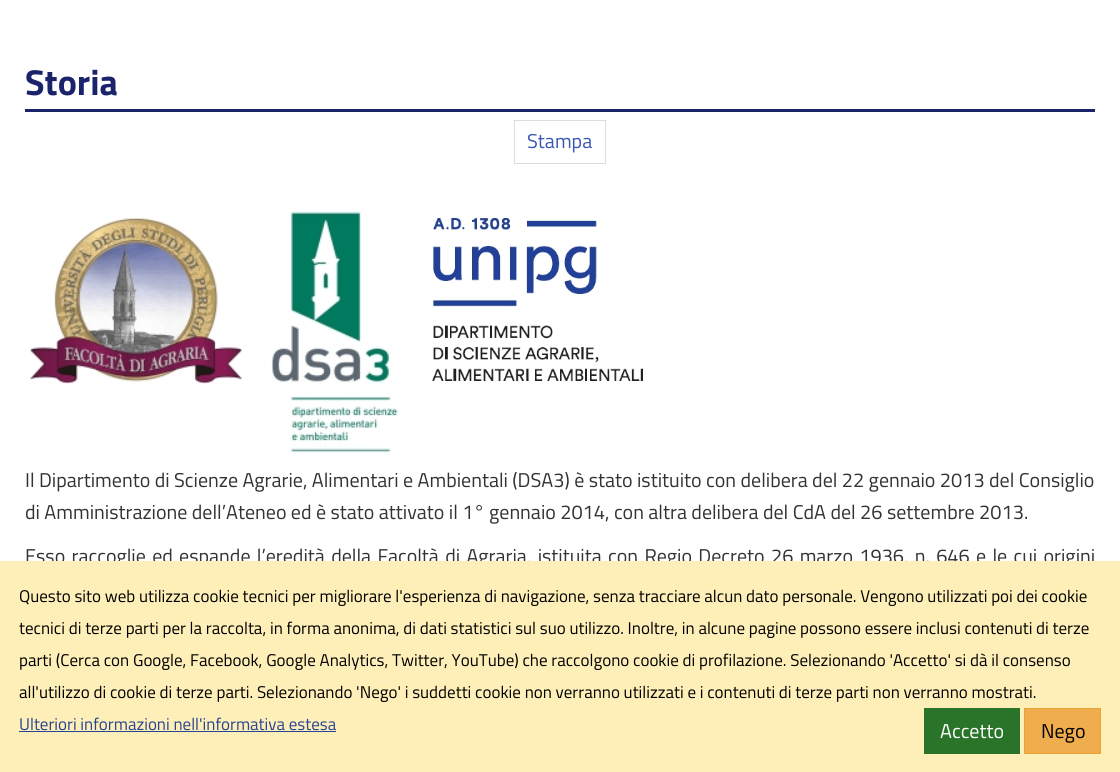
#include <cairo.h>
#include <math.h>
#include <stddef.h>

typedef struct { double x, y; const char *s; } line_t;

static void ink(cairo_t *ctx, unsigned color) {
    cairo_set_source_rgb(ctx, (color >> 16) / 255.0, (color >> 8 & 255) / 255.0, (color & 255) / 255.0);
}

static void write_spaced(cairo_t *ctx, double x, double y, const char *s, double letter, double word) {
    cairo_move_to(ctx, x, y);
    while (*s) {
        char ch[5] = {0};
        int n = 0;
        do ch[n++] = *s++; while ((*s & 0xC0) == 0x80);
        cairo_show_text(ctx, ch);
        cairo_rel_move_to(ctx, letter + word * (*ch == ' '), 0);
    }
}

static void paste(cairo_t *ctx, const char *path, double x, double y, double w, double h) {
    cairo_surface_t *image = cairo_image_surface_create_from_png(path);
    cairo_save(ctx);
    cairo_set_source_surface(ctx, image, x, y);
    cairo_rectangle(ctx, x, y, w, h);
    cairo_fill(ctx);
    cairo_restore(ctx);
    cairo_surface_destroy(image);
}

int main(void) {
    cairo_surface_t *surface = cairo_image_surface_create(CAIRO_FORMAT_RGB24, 1120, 772);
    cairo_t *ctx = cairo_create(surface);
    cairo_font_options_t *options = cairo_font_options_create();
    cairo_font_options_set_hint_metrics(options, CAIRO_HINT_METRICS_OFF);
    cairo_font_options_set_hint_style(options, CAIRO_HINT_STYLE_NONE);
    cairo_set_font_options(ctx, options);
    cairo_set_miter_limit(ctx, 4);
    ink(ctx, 0xFFFFFF);
    cairo_paint(ctx);
    ink(ctx, 0x1B236B);
    cairo_rectangle(ctx, 25, 109, 1070, 3);
    cairo_fill(ctx);
    cairo_select_font_face(ctx, "Titillium Web", CAIRO_FONT_SLANT_NORMAL, CAIRO_FONT_WEIGHT_BOLD);
    cairo_set_font_size(ctx, 36);
    cairo_move_to(ctx, 25, 95);
    cairo_show_text(ctx, "Storia");
    cairo_rectangle(ctx, 514.5, 120.5, 91, 43);
    ink(ctx, 0xDDDDDD);
    cairo_set_line_width(ctx, 1);
    cairo_stroke(ctx);
    cairo_select_font_face(ctx, "Titillium Web", CAIRO_FONT_SLANT_NORMAL, CAIRO_FONT_WEIGHT_NORMAL);
    cairo_set_font_size(ctx, 20);
    ink(ctx, 0x3857B6);
    cairo_move_to(ctx, 527, 148);
    cairo_show_text(ctx, "Stampa");
    paste(ctx, "media/1.png", 29, 211, 370, 242);
    paste(ctx, "media/2.png", 432, 217, 211, 164);
    ink(ctx, 0x333333);
    cairo_move_to(ctx, 25, 487);
    cairo_show_text(ctx, "Il Dipartimento di Scienze Agrarie, Alimentari e Ambientali (DSA3) è stato istituito con delibera del 22 gennaio 2013 del Consiglio");
    cairo_move_to(ctx, 25, 519);
    cairo_show_text(ctx, "di Amministrazione dell’Ateneo ed è stato attivato il 1° gennaio 2014, con altra delibera del CdA del 26 settembre 2013.");
    write_spaced(ctx, 25, 563, "Esso raccoglie ed espande l’eredità della Facoltà di Agraria, istituita con Regio Decreto 26 marzo 1936, n. 646 e le cui origini", 0, 1.9);
    ink(ctx, 0xFDEFB7);
    cairo_rectangle(ctx, 0, 561, 1120, 211);
    cairo_fill(ctx);
    cairo_set_font_size(ctx, 17);
    ink(ctx, 0x000000);
    {
        static const line_t items[] = {
            {19, 602, "Questo sito web utilizza cookie tecnici per migliorare l'esperienza di navigazione, senza tracciare alcun dato personale. Vengono utilizzati poi dei cookie"},
            {19, 634, "tecnici di terze parti per la raccolta, in forma anonima, di dati statistici sul suo utilizzo. Inoltre, in alcune pagine possono essere inclusi contenuti di terze"},
            {19, 666, "parti (Cerca con Google, Facebook, Google Analytics, Twitter, YouTube) che raccolgono cookie di profilazione. Selezionando 'Accetto' si dà il consenso"},
            {19, 698, "all'utilizzo di cookie di terze parti. Selezionando 'Nego' i suddetti cookie non verranno utilizzati e i contenuti di terze parti non verranno mostrati."},
        };
        for (size_t i = 0; i < sizeof items / sizeof *items; i++) {
            cairo_move_to(ctx, items[i].x, items[i].y);
            cairo_show_text(ctx, items[i].s);
        }
    }
    ink(ctx, 0x294394);
    cairo_move_to(ctx, 19, 730);
    cairo_show_text(ctx, "Ulteriori informazioni nell'informativa estesa");
    cairo_rectangle(ctx, 19, 731, 317, 1);
    cairo_fill(ctx);
    ink(ctx, 0x2A742A);
    cairo_rectangle(ctx, 924, 708, 96, 46);
    cairo_fill(ctx);
    cairo_set_font_size(ctx, 20);
    ink(ctx, 0xFFFFFF);
    cairo_move_to(ctx, 940, 738);
    cairo_show_text(ctx, "Accetto");
    ink(ctx, 0xF0AD4E);
    cairo_rectangle(ctx, 1024.5, 708.5, 76, 45);
    cairo_fill_preserve(ctx);
    ink(ctx, 0xEEA236);
    cairo_stroke(ctx);
    ink(ctx, 0x000000);
    cairo_move_to(ctx, 1041, 738);
    cairo_show_text(ctx, "Nego");
    cairo_surface_write_to_png(surface, "image.png");
    cairo_font_options_destroy(options);
    cairo_destroy(ctx);
    cairo_surface_destroy(surface);
    return 0;
}
